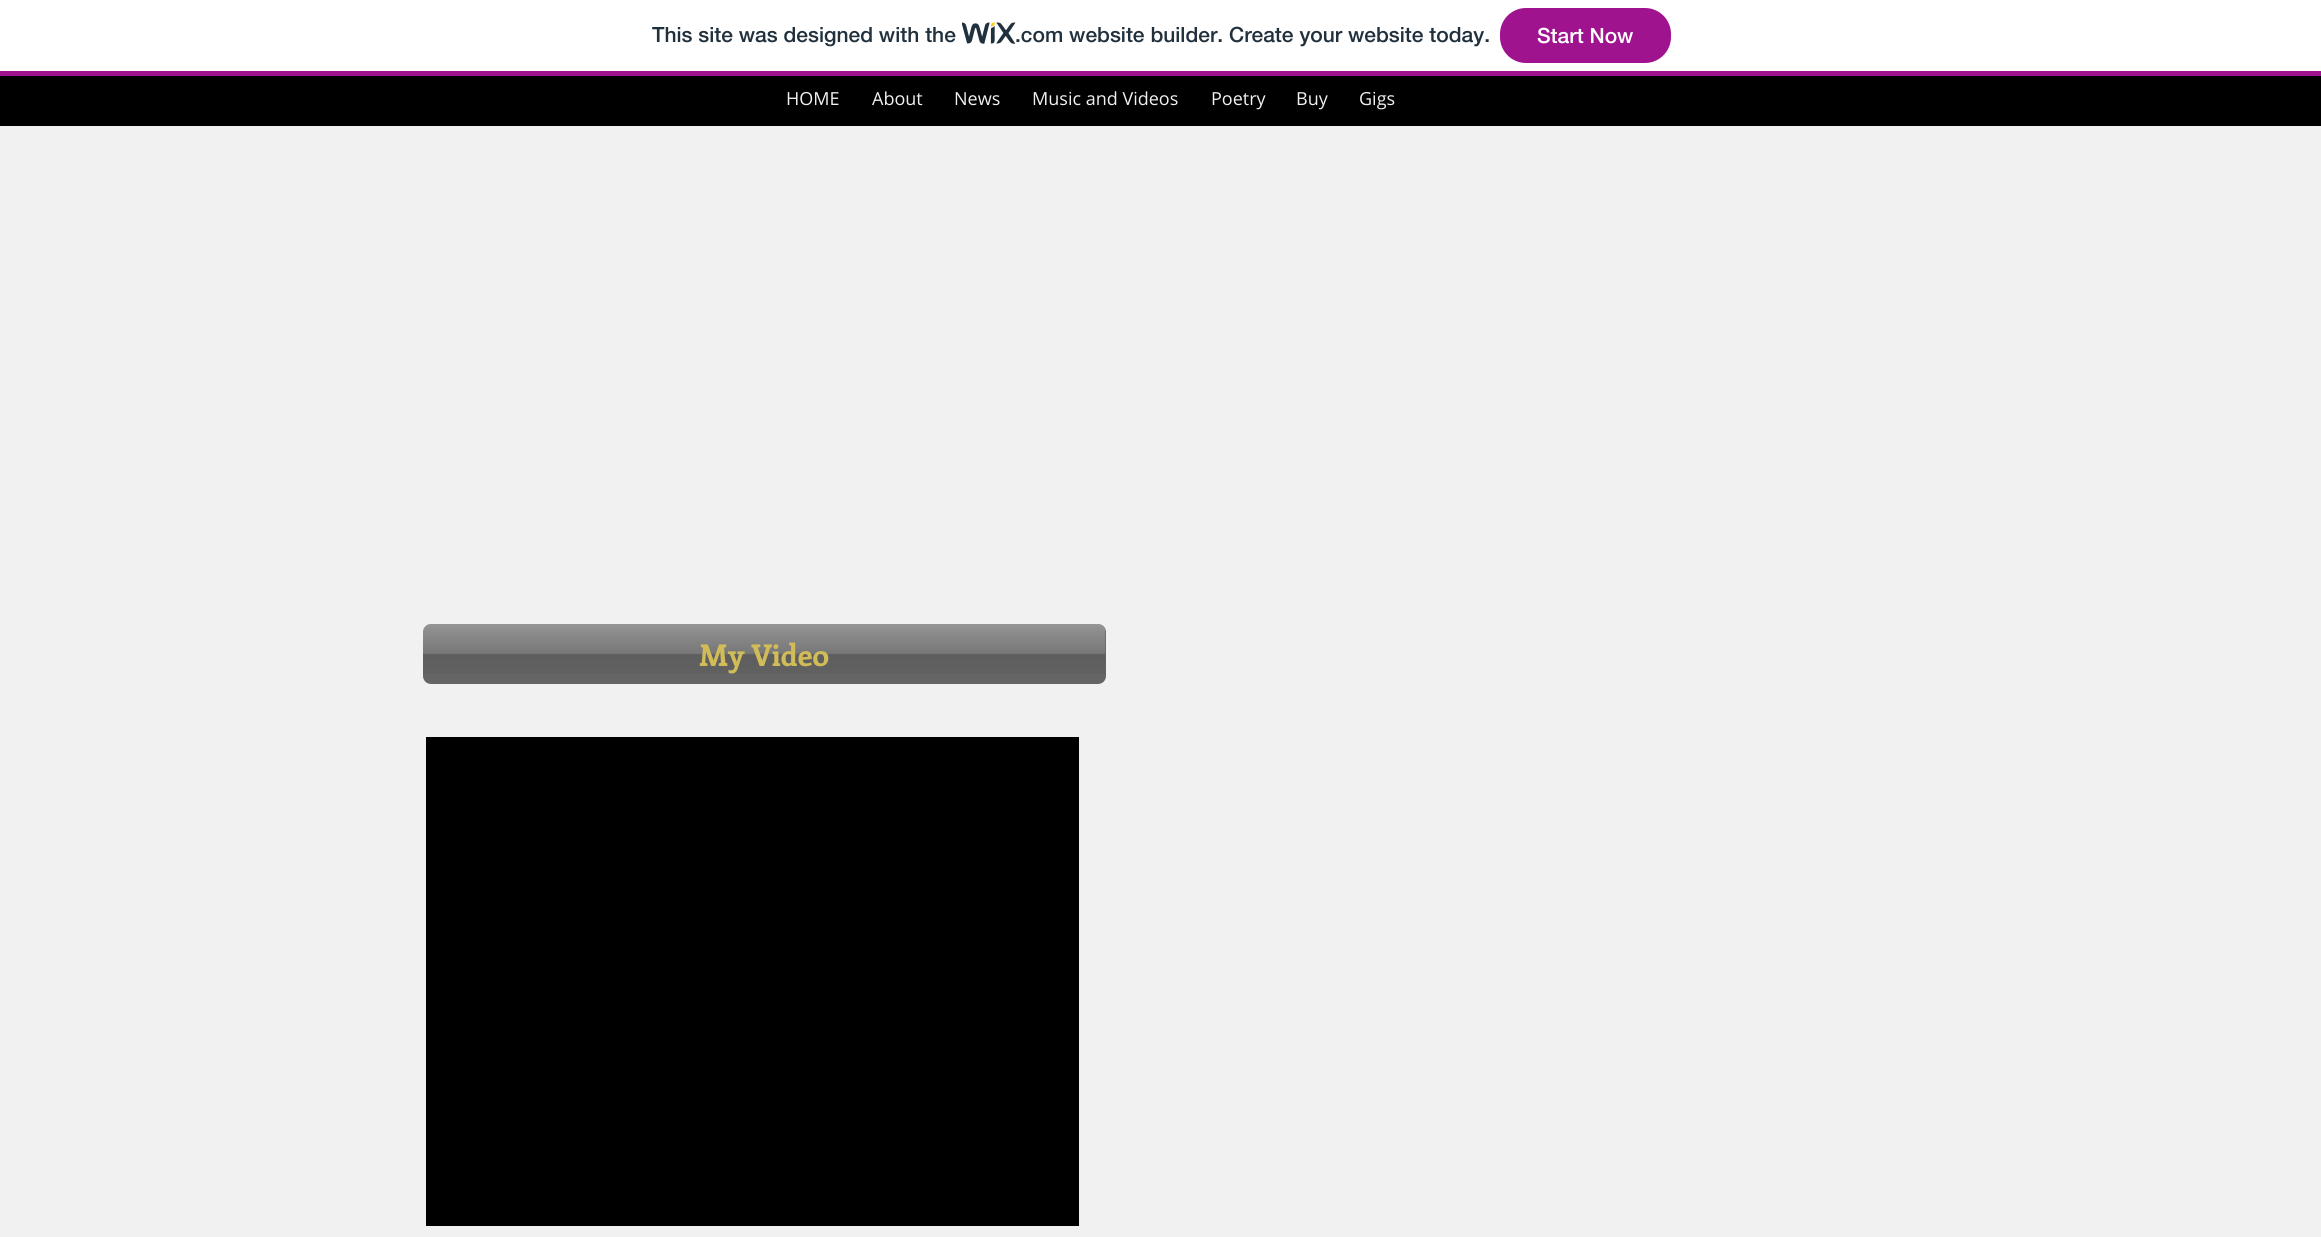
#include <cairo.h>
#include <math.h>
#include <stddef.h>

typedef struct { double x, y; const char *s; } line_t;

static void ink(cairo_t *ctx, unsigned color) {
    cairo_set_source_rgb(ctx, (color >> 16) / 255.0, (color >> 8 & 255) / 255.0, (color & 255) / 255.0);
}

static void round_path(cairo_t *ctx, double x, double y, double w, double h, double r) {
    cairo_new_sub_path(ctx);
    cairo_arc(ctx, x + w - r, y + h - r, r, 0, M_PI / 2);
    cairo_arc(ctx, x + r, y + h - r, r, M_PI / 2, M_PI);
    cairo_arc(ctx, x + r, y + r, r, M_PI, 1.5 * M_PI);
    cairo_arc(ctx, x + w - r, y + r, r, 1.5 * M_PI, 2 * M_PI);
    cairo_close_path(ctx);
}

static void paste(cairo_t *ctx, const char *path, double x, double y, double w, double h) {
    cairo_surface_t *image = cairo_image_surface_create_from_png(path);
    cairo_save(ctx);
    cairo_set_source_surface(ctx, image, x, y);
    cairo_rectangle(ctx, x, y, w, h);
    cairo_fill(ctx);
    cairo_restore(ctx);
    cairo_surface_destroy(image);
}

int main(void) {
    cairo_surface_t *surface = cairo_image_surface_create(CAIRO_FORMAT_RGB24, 2321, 1237);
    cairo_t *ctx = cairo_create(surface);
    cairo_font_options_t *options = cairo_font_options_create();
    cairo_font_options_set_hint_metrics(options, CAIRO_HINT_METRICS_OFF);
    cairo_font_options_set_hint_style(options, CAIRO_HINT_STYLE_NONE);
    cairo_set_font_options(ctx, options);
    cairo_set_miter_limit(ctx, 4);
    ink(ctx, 0xF1F1F1);
    cairo_paint(ctx);
    ink(ctx, 0xFFFFFF);
    cairo_rectangle(ctx, 0, 0, 2321, 71);
    cairo_fill(ctx);
    ink(ctx, 0xA0138E);
    cairo_rectangle(ctx, 0, 71, 2321, 5);
    cairo_fill(ctx);
    cairo_select_font_face(ctx, "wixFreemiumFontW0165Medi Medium", CAIRO_FONT_SLANT_NORMAL, CAIRO_FONT_WEIGHT_NORMAL);
    cairo_set_font_size(ctx, 21);
    ink(ctx, 0x20303C);
    cairo_move_to(ctx, 652, 42);
    cairo_show_text(ctx, "This site was designed with the");
    paste(ctx, "media/1.png", 962, 22, 54, 22);
    cairo_move_to(ctx, 1015, 42);
    cairo_show_text(ctx, ".com website builder. Create your website today.");
    ink(ctx, 0xA0138E);
    round_path(ctx, 1501, 9, 169, 53, 25);
    cairo_fill_preserve(ctx);
    cairo_stroke(ctx);
    ink(ctx, 0xFFFFFF);
    cairo_move_to(ctx, 1537, 43);
    cairo_show_text(ctx, "Start Now");
    ink(ctx, 0x000000);
    cairo_rectangle(ctx, 0, 76, 2321, 50);
    cairo_fill(ctx);
    cairo_select_font_face(ctx, "Open Sans", CAIRO_FONT_SLANT_NORMAL, CAIRO_FONT_WEIGHT_NORMAL);
    cairo_set_font_size(ctx, 18);
    ink(ctx, 0xF1F1F1);
    {
        static const line_t items[] = {
            {786, 105, "HOME"},
            {872, 105, "About"},
            {954, 105, "News"},
            {1032, 105, "Music and Videos"},
            {1211, 105, "Poetry"},
            {1296, 105, "Buy"},
            {1359, 105, "Gigs"},
        };
        for (size_t i = 0; i < sizeof items / sizeof *items; i++) {
            cairo_move_to(ctx, items[i].x, items[i].y);
            cairo_show_text(ctx, items[i].s);
        }
    }
    ink(ctx, 0x656565);
    round_path(ctx, 423, 624, 683, 60, 8);
    cairo_fill(ctx);
    paste(ctx, "media/2.png", 423, 624, 683, 50);
    cairo_select_font_face(ctx, "Enriqueta", CAIRO_FONT_SLANT_NORMAL, CAIRO_FONT_WEIGHT_BOLD);
    cairo_set_font_size(ctx, 30);
    ink(ctx, 0xD1BC58);
    cairo_move_to(ctx, 699, 666);
    cairo_show_text(ctx, "My Video");
    ink(ctx, 0x000000);
    cairo_rectangle(ctx, 426, 737, 653, 489);
    cairo_fill(ctx);
    cairo_surface_write_to_png(surface, "image.png");
    cairo_font_options_destroy(options);
    cairo_destroy(ctx);
    cairo_surface_destroy(surface);
    return 0;
}
